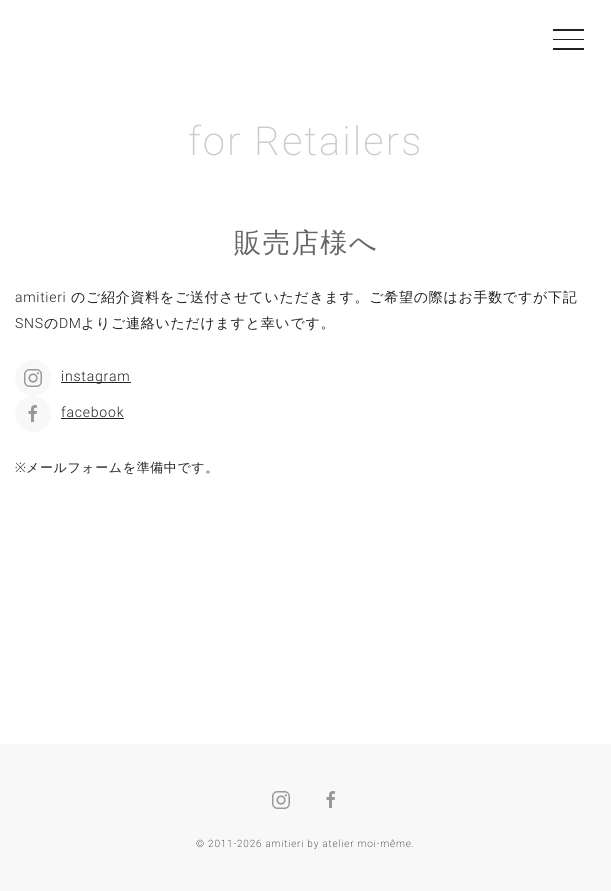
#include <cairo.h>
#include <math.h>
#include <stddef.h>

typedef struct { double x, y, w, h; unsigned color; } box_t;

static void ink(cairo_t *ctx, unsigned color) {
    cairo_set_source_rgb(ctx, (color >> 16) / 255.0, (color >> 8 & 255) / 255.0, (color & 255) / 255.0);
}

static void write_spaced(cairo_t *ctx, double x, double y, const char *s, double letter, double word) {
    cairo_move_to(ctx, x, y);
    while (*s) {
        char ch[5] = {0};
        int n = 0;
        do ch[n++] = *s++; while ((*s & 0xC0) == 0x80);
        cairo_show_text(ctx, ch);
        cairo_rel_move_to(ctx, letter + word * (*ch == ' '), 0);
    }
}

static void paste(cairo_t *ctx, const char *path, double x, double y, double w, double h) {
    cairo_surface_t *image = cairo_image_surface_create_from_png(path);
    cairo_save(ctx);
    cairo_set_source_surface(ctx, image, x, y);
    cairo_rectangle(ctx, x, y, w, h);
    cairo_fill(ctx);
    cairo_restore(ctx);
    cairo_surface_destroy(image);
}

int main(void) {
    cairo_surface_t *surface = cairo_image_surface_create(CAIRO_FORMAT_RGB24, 611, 891);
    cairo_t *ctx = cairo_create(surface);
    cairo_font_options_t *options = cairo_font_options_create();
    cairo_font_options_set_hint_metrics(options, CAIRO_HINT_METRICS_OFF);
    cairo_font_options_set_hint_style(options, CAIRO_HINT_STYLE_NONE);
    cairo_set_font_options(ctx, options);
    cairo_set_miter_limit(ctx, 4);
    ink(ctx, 0xFFFFFF);
    cairo_paint(ctx);
    {
        static const box_t items[] = {
            {553, 29, 31, 2, 0x222222},
            {553, 39, 31, 1, 0x222222},
            {553, 48, 31, 2, 0x222222},
        };
        for (size_t i = 0; i < sizeof items / sizeof *items; i++) {
            ink(ctx, items[i].color);
            cairo_rectangle(ctx, items[i].x, items[i].y, items[i].w, items[i].h);
            cairo_fill(ctx);
        }
    }
    cairo_select_font_face(ctx, "Roboto ExtraLight", CAIRO_FONT_SLANT_NORMAL, CAIRO_FONT_WEIGHT_NORMAL);
    cairo_set_font_size(ctx, 40);
    ink(ctx, 0xCCCCCC);
    write_spaced(ctx, 188, 155, "for Retailers", 2, 0);
    cairo_select_font_face(ctx, "WenQuanYi Zen Hei Medium", CAIRO_FONT_SLANT_NORMAL, CAIRO_FONT_WEIGHT_NORMAL);
    cairo_set_font_size(ctx, 27.25);
    ink(ctx, 0x666666);
    write_spaced(ctx, 234, 252, "販売店様へ", 1.5, 0);
    cairo_select_font_face(ctx, "Roboto Light", CAIRO_FONT_SLANT_NORMAL, CAIRO_FONT_WEIGHT_NORMAL);
    cairo_set_font_size(ctx, 14);
    ink(ctx, 0x222222);
    write_spaced(ctx, 15, 302, "amitieri", 0.7, 0);
    cairo_select_font_face(ctx, "WenQuanYi Zen Hei Medium", CAIRO_FONT_SLANT_NORMAL, CAIRO_FONT_WEIGHT_NORMAL);
    write_spaced(ctx, 71, 302, "のご紹介資料をご送付させていただきます。ご希望の際はお手数ですが下記", 0.7, 0);
    cairo_select_font_face(ctx, "Roboto Light", CAIRO_FONT_SLANT_NORMAL, CAIRO_FONT_WEIGHT_NORMAL);
    write_spaced(ctx, 15, 328, "SNS", 0.7, 0);
    cairo_select_font_face(ctx, "WenQuanYi Zen Hei Medium", CAIRO_FONT_SLANT_NORMAL, CAIRO_FONT_WEIGHT_NORMAL);
    write_spaced(ctx, 44, 328, "の", 0.7, 0);
    cairo_select_font_face(ctx, "Roboto Light", CAIRO_FONT_SLANT_NORMAL, CAIRO_FONT_WEIGHT_NORMAL);
    write_spaced(ctx, 59, 328, "DM", 0.7, 0);
    cairo_select_font_face(ctx, "WenQuanYi Zen Hei Medium", CAIRO_FONT_SLANT_NORMAL, CAIRO_FONT_WEIGHT_NORMAL);
    write_spaced(ctx, 81, 328, "よりご連絡いただけますと幸いです。", 0.7, 0);
    ink(ctx, 0xF8F8F8);
    cairo_new_path(ctx);
    cairo_arc(ctx, 33, 378, 18, 0, 2 * M_PI);
    cairo_fill(ctx);
    paste(ctx, "media/1.png", 24, 369, 18, 18);
    ink(ctx, 0x222222);
    cairo_rectangle(ctx, 61, 382, 70, 1);
    cairo_fill(ctx);
    cairo_select_font_face(ctx, "Roboto Light", CAIRO_FONT_SLANT_NORMAL, CAIRO_FONT_WEIGHT_NORMAL);
    write_spaced(ctx, 61, 381, "instagram", 0.8, 0);
    ink(ctx, 0xF8F8F8);
    cairo_new_path(ctx);
    cairo_arc(ctx, 33, 414, 18, 0, 2 * M_PI);
    cairo_fill(ctx);
    paste(ctx, "media/2.png", 28, 405, 9, 17);
    ink(ctx, 0x222222);
    write_spaced(ctx, 61, 417, "facebook", 0.8, 0);
    cairo_rectangle(ctx, 61, 418, 63, 1);
    cairo_fill(ctx);
    cairo_select_font_face(ctx, "Noto Sans Light", CAIRO_FONT_SLANT_NORMAL, CAIRO_FONT_WEIGHT_NORMAL);
    cairo_set_font_size(ctx, 13);
    write_spaced(ctx, 15, 472, "※", 0.6, 0);
    cairo_select_font_face(ctx, "WenQuanYi Zen Hei Medium", CAIRO_FONT_SLANT_NORMAL, CAIRO_FONT_WEIGHT_NORMAL);
    write_spaced(ctx, 26, 472, "メールフォームを準備中です。", 0.6, 0);
    ink(ctx, 0xF8F8F8);
    cairo_rectangle(ctx, 0, 744, 611, 147);
    cairo_fill(ctx);
    paste(ctx, "media/1.png", 272, 791, 18, 18);
    paste(ctx, "media/2.png", 326, 791, 9, 17);
    cairo_select_font_face(ctx, "Roboto ExtraLight", CAIRO_FONT_SLANT_NORMAL, CAIRO_FONT_WEIGHT_NORMAL);
    cairo_set_font_size(ctx, 10);
    ink(ctx, 0x222222);
    write_spaced(ctx, 196, 847, "© 2011-2026 amitieri by atelier moi-même.", 0.8, 0);
    cairo_surface_write_to_png(surface, "image.png");
    cairo_font_options_destroy(options);
    cairo_destroy(ctx);
    cairo_surface_destroy(surface);
    return 0;
}
